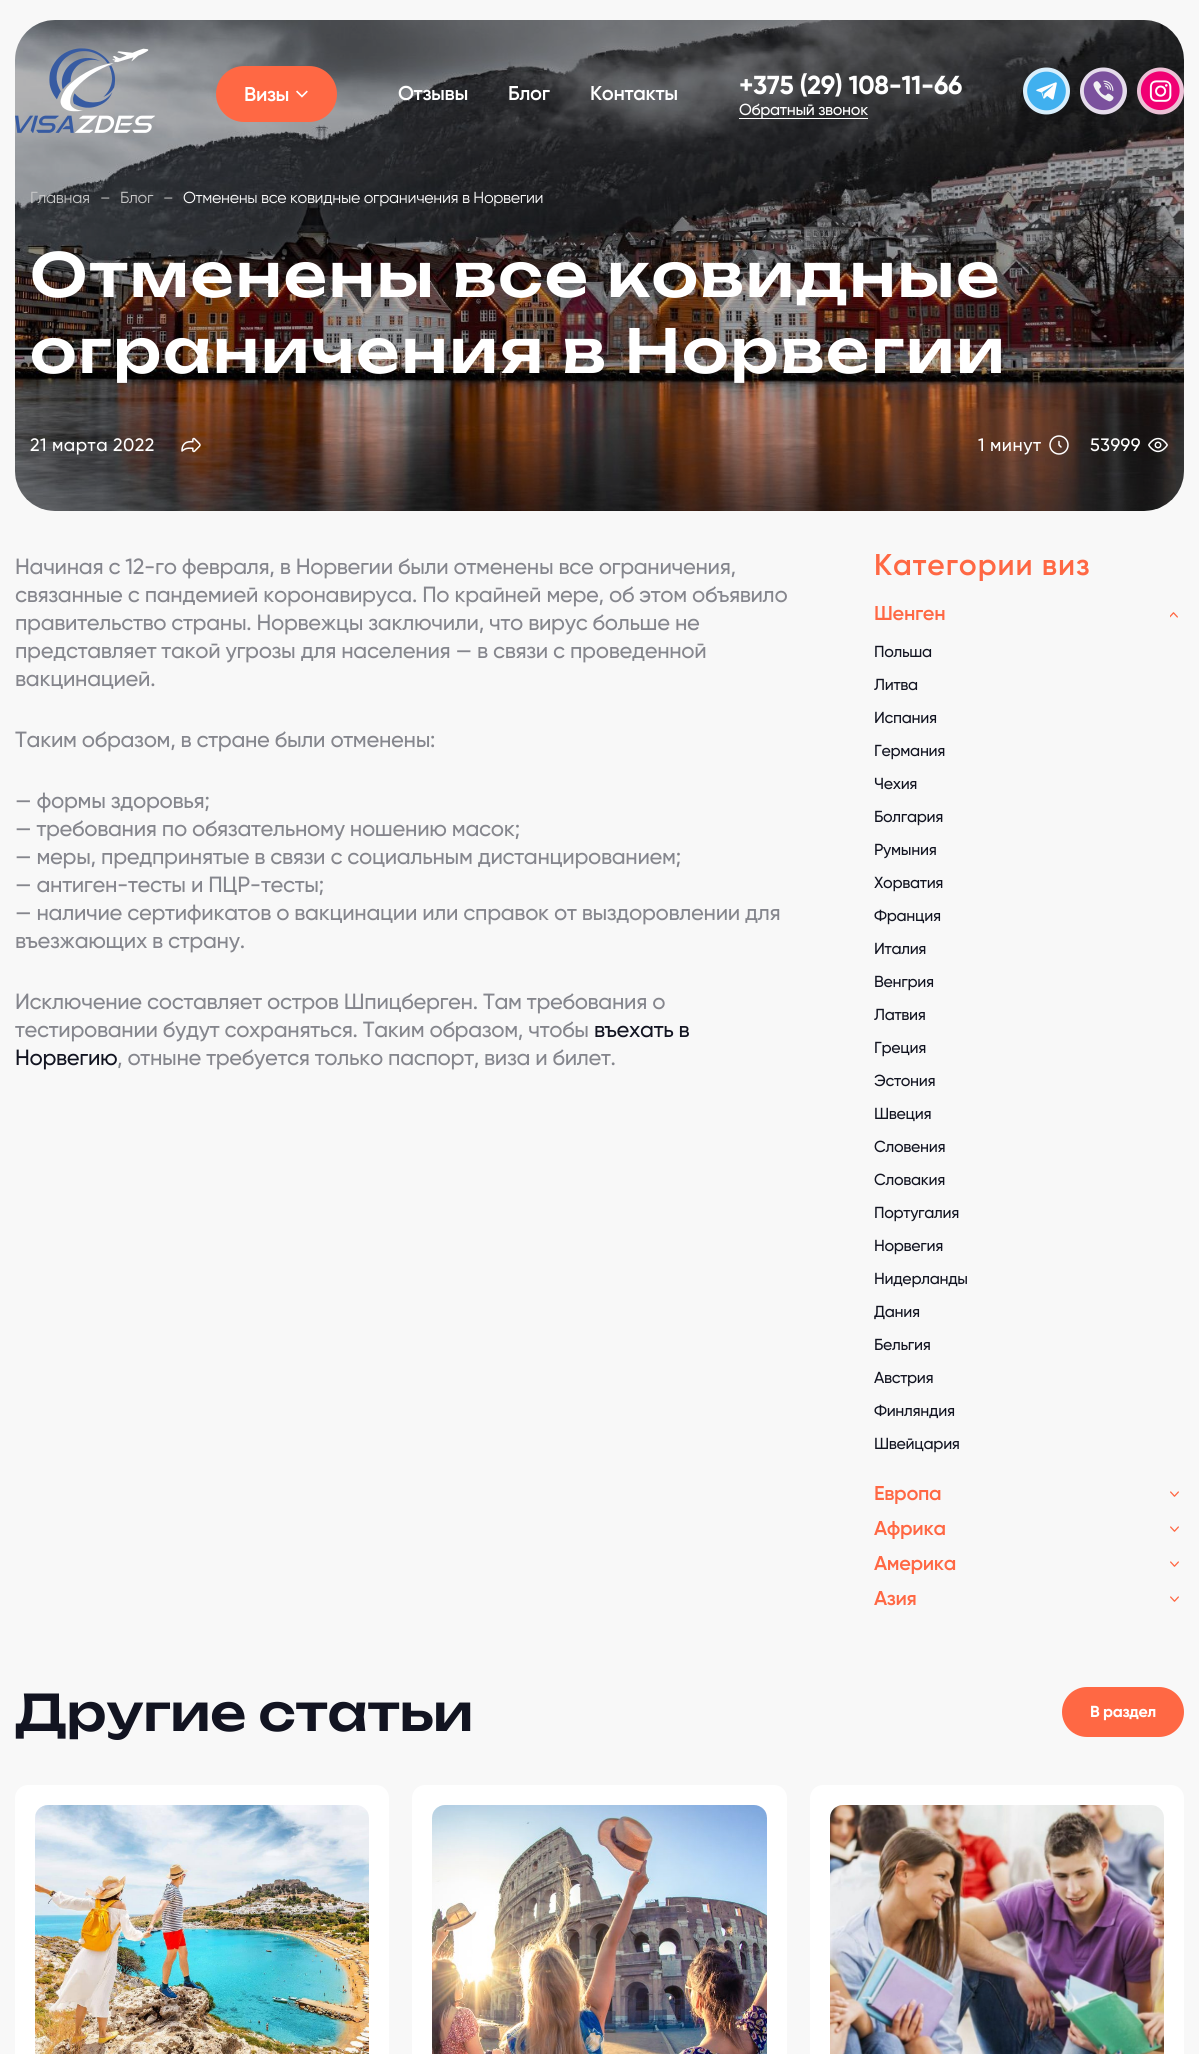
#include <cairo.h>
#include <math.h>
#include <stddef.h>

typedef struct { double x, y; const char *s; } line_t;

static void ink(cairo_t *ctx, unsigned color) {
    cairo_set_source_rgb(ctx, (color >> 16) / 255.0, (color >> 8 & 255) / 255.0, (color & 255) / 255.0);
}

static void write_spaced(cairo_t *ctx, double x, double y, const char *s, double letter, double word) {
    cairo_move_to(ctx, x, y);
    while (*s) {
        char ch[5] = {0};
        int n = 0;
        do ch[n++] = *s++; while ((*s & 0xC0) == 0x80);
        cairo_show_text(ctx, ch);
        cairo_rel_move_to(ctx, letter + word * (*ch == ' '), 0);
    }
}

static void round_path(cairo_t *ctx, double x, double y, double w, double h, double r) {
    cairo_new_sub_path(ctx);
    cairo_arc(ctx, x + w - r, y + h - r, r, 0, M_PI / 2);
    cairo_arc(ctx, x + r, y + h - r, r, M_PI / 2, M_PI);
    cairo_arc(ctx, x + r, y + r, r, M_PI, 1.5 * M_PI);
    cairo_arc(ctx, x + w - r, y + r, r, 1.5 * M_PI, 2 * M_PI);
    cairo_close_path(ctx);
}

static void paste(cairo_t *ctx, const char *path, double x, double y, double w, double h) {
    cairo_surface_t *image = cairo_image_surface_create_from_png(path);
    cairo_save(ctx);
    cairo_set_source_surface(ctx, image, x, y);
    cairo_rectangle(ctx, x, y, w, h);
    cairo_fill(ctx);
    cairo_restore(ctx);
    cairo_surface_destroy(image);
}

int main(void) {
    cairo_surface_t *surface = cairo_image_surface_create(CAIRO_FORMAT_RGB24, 1199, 2054);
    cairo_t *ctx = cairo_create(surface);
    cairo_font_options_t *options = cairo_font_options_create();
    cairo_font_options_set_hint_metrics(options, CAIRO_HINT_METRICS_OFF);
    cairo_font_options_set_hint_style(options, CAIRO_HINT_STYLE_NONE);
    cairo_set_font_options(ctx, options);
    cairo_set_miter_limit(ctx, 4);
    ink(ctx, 0xF8F8F8);
    cairo_paint(ctx);
    paste(ctx, "media/6.png", 15, 20, 1169, 491);
    cairo_set_source_rgba(ctx, 0, 0, 0, 0.3);
    round_path(ctx, 15, 20, 1169, 491, 40);
    cairo_fill(ctx);
    paste(ctx, "media/1.png", 15, 48, 140, 85);
    ink(ctx, 0xFF6844);
    round_path(ctx, 216, 66, 121, 56, 28);
    cairo_fill(ctx);
    paste(ctx, "media/2.png", 296, 90, 12, 8);
    cairo_select_font_face(ctx, "Gilroy SemiBold", CAIRO_FONT_SLANT_NORMAL, CAIRO_FONT_WEIGHT_NORMAL);
    cairo_set_font_size(ctx, 20);
    ink(ctx, 0xFFFFFF);
    {
        static const line_t items[] = {
            {244, 101, "Визы"},
            {398, 100, "Отзывы"},
            {508, 100, "Блог"},
            {590, 100, "Контакты"},
        };
        for (size_t i = 0; i < sizeof items / sizeof *items; i++) {
            write_spaced(ctx, items[i].x, items[i].y, items[i].s, -0.32, 0);
        }
    }
    cairo_select_font_face(ctx, "Gilroy", CAIRO_FONT_SLANT_NORMAL, CAIRO_FONT_WEIGHT_BOLD);
    cairo_set_font_size(ctx, 26);
    write_spaced(ctx, 739, 94, "+375 (29) 108-11-66", -0.32, 0);
    cairo_rectangle(ctx, 739, 118, 129, 1);
    cairo_fill(ctx);
    cairo_select_font_face(ctx, "Gilroy Medium", CAIRO_FONT_SLANT_NORMAL, CAIRO_FONT_WEIGHT_NORMAL);
    cairo_set_font_size(ctx, 16);
    write_spaced(ctx, 739, 115, "Обратный звонок", -0.32, 0);
    paste(ctx, "media/3.png", 1023, 67, 47, 48);
    paste(ctx, "media/4.png", 1080, 67, 47, 48);
    paste(ctx, "media/5.png", 1137, 67, 47, 48);
    cairo_select_font_face(ctx, "Gilroy", CAIRO_FONT_SLANT_NORMAL, CAIRO_FONT_WEIGHT_NORMAL);
    ink(ctx, 0xC8C8C8);
    {
        static const line_t items[] = {
            {30, 203, "Главная"},
            {100, 203, "–"},
            {120, 203, "Блог"},
            {163, 203, "–"},
        };
        for (size_t i = 0; i < sizeof items / sizeof *items; i++) {
            write_spaced(ctx, items[i].x, items[i].y, items[i].s, -0.32, 0);
        }
    }
    ink(ctx, 0xFFFFFF);
    write_spaced(ctx, 183, 203, "Отменены все ковидные ограничения в Норвегии", -0.32, 0);
    cairo_select_font_face(ctx, "Unbounded Medium", CAIRO_FONT_SLANT_NORMAL, CAIRO_FONT_WEIGHT_NORMAL);
    cairo_set_font_size(ctx, 60);
    write_spaced(ctx, 30, 297, "Отменены все ковидные", 1.8, 0);
    write_spaced(ctx, 30, 373, "ограничения в Норвегии", 1.8, 0);
    cairo_select_font_face(ctx, "Gilroy Medium", CAIRO_FONT_SLANT_NORMAL, CAIRO_FONT_WEIGHT_NORMAL);
    cairo_set_font_size(ctx, 18);
    write_spaced(ctx, 30, 451, "21 марта 2022", 0.5, 0);
    paste(ctx, "media/7.png", 181, 437, 20, 16);
    cairo_arc(ctx, 1059, 445, 9, 0, 2 * M_PI);
    cairo_set_line_width(ctx, 1.5);
    cairo_stroke(ctx);
    cairo_new_path(ctx);
    cairo_move_to(ctx, 1059, 441.5);
    cairo_line_to(ctx, 1059, 445);
    cairo_line_to(ctx, 1061, 447);
    cairo_set_line_cap(ctx, CAIRO_LINE_CAP_ROUND);
    cairo_set_line_join(ctx, CAIRO_LINE_JOIN_ROUND);
    cairo_stroke(ctx);
    write_spaced(ctx, 978, 451, "1 минут", 0.5, 0);
    paste(ctx, "media/8.png", 1148, 437, 20, 16);
    write_spaced(ctx, 1090, 451, "53999", 0.5, 0);
    cairo_set_font_size(ctx, 22);
    ink(ctx, 0x85868D);
    {
        static const line_t items[] = {
            {15, 574, "Начиная с 12-го февраля, в Норвегии были отменены все ограничения,"},
            {15, 602, "связанные с пандемией коронавируса. По крайней мере, об этом объявило"},
            {15, 630, "правительство страны. Норвежцы заключили, что вирус больше не"},
            {15, 658, "представляет такой угрозы для населения — в связи с проведенной"},
            {15, 686, "вакцинацией."},
            {15, 747, "Таким образом, в стране были отменены:"},
            {15, 808, "— формы здоровья;"},
            {15, 836, "— требования по обязательному ношению масок;"},
            {15, 864, "— меры, предпринятые в связи с социальным дистанцированием;"},
            {15, 892, "— антиген-тесты и ПЦР-тесты;"},
            {15, 920, "— наличие сертификатов о вакцинации или справок от выздоровлении для"},
            {15, 948, "въезжающих в страну."},
            {15, 1009, "Исключение составляет остров Шпицберген. Там требования о"},
            {15, 1037, "тестировании будут сохраняться. Таким образом, чтобы"},
        };
        for (size_t i = 0; i < sizeof items / sizeof *items; i++) {
            write_spaced(ctx, items[i].x, items[i].y, items[i].s, -0.32, 0);
        }
    }
    ink(ctx, 0x121421);
    write_spaced(ctx, 594, 1037, "въехать в", -0.32, 0);
    write_spaced(ctx, 15, 1065, "Норвегию", -0.32, 0);
    ink(ctx, 0x85868D);
    write_spaced(ctx, 117, 1065, ", отныне требуется только паспорт, виза и билет.", -0.32, 0);
    cairo_select_font_face(ctx, "Gilroy SemiBold", CAIRO_FONT_SLANT_NORMAL, CAIRO_FONT_WEIGHT_NORMAL);
    cairo_set_font_size(ctx, 30);
    ink(ctx, 0xFF6844);
    write_spaced(ctx, 874, 575, "Категории виз", 0.9, 0);
    cairo_set_font_size(ctx, 20);
    write_spaced(ctx, 874, 620, "Шенген", -0.32, 0);
    paste(ctx, "media/9.png", 1170, 612, 8, 6);
    cairo_select_font_face(ctx, "Gilroy Medium", CAIRO_FONT_SLANT_NORMAL, CAIRO_FONT_WEIGHT_NORMAL);
    cairo_set_font_size(ctx, 16);
    ink(ctx, 0x121421);
    {
        static const line_t items[] = {
            {874, 657, "Польша"},
            {874, 690, "Литва"},
            {874, 723, "Испания"},
            {874, 756, "Германия"},
            {874, 789, "Чехия"},
            {874, 822, "Болгария"},
            {874, 855, "Румыния"},
            {874, 888, "Хорватия"},
            {874, 921, "Франция"},
            {874, 954, "Италия"},
            {874, 987, "Венгрия"},
            {874, 1020, "Латвия"},
            {874, 1053, "Греция"},
            {874, 1086, "Эстония"},
            {874, 1119, "Швеция"},
            {874, 1152, "Словения"},
            {874, 1185, "Словакия"},
            {874, 1218, "Португалия"},
            {874, 1251, "Норвегия"},
            {874, 1284, "Нидерланды"},
            {874, 1317, "Дания"},
            {874, 1350, "Бельгия"},
            {874, 1383, "Австрия"},
            {874, 1416, "Финляндия"},
            {874, 1449, "Швейцария"},
        };
        for (size_t i = 0; i < sizeof items / sizeof *items; i++) {
            write_spaced(ctx, items[i].x, items[i].y, items[i].s, -0.32, 0);
        }
    }
    cairo_select_font_face(ctx, "Gilroy SemiBold", CAIRO_FONT_SLANT_NORMAL, CAIRO_FONT_WEIGHT_NORMAL);
    cairo_set_font_size(ctx, 20);
    ink(ctx, 0xFF6844);
    write_spaced(ctx, 874, 1500, "Европа", -0.32, 0);
    paste(ctx, "media/10.png", 1170, 1491, 9, 6);
    write_spaced(ctx, 874, 1535, "Африка", -0.32, 0);
    paste(ctx, "media/10.png", 1170, 1526, 9, 6);
    write_spaced(ctx, 874, 1570, "Америка", -0.32, 0);
    paste(ctx, "media/10.png", 1170, 1561, 9, 6);
    write_spaced(ctx, 874, 1605, "Азия", -0.32, 0);
    paste(ctx, "media/10.png", 1170, 1596, 9, 6);
    cairo_select_font_face(ctx, "Unbounded Medium", CAIRO_FONT_SLANT_NORMAL, CAIRO_FONT_WEIGHT_NORMAL);
    cairo_set_font_size(ctx, 50);
    ink(ctx, 0x121421);
    write_spaced(ctx, 15, 1731, "Другие статьи", -0.32, 0);
    ink(ctx, 0xFF6844);
    round_path(ctx, 1062, 1687, 122, 50, 25);
    cairo_fill(ctx);
    cairo_select_font_face(ctx, "Gilroy", CAIRO_FONT_SLANT_NORMAL, CAIRO_FONT_WEIGHT_BOLD);
    cairo_set_font_size(ctx, 16);
    ink(ctx, 0xFFFFFF);
    write_spaced(ctx, 1090, 1717, "В раздел", -0.32, 0);
    round_path(ctx, 15, 1785, 374, 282, 13);
    cairo_fill(ctx);
    paste(ctx, "media/11.png", 35, 1805, 334, 249);
    round_path(ctx, 412, 1785, 375, 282, 13);
    cairo_fill(ctx);
    paste(ctx, "media/12.png", 432, 1805, 335, 249);
    round_path(ctx, 810, 1785, 374, 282, 13);
    cairo_fill(ctx);
    paste(ctx, "media/13.png", 830, 1805, 334, 249);
    cairo_surface_write_to_png(surface, "image.png");
    cairo_font_options_destroy(options);
    cairo_destroy(ctx);
    cairo_surface_destroy(surface);
    return 0;
}
